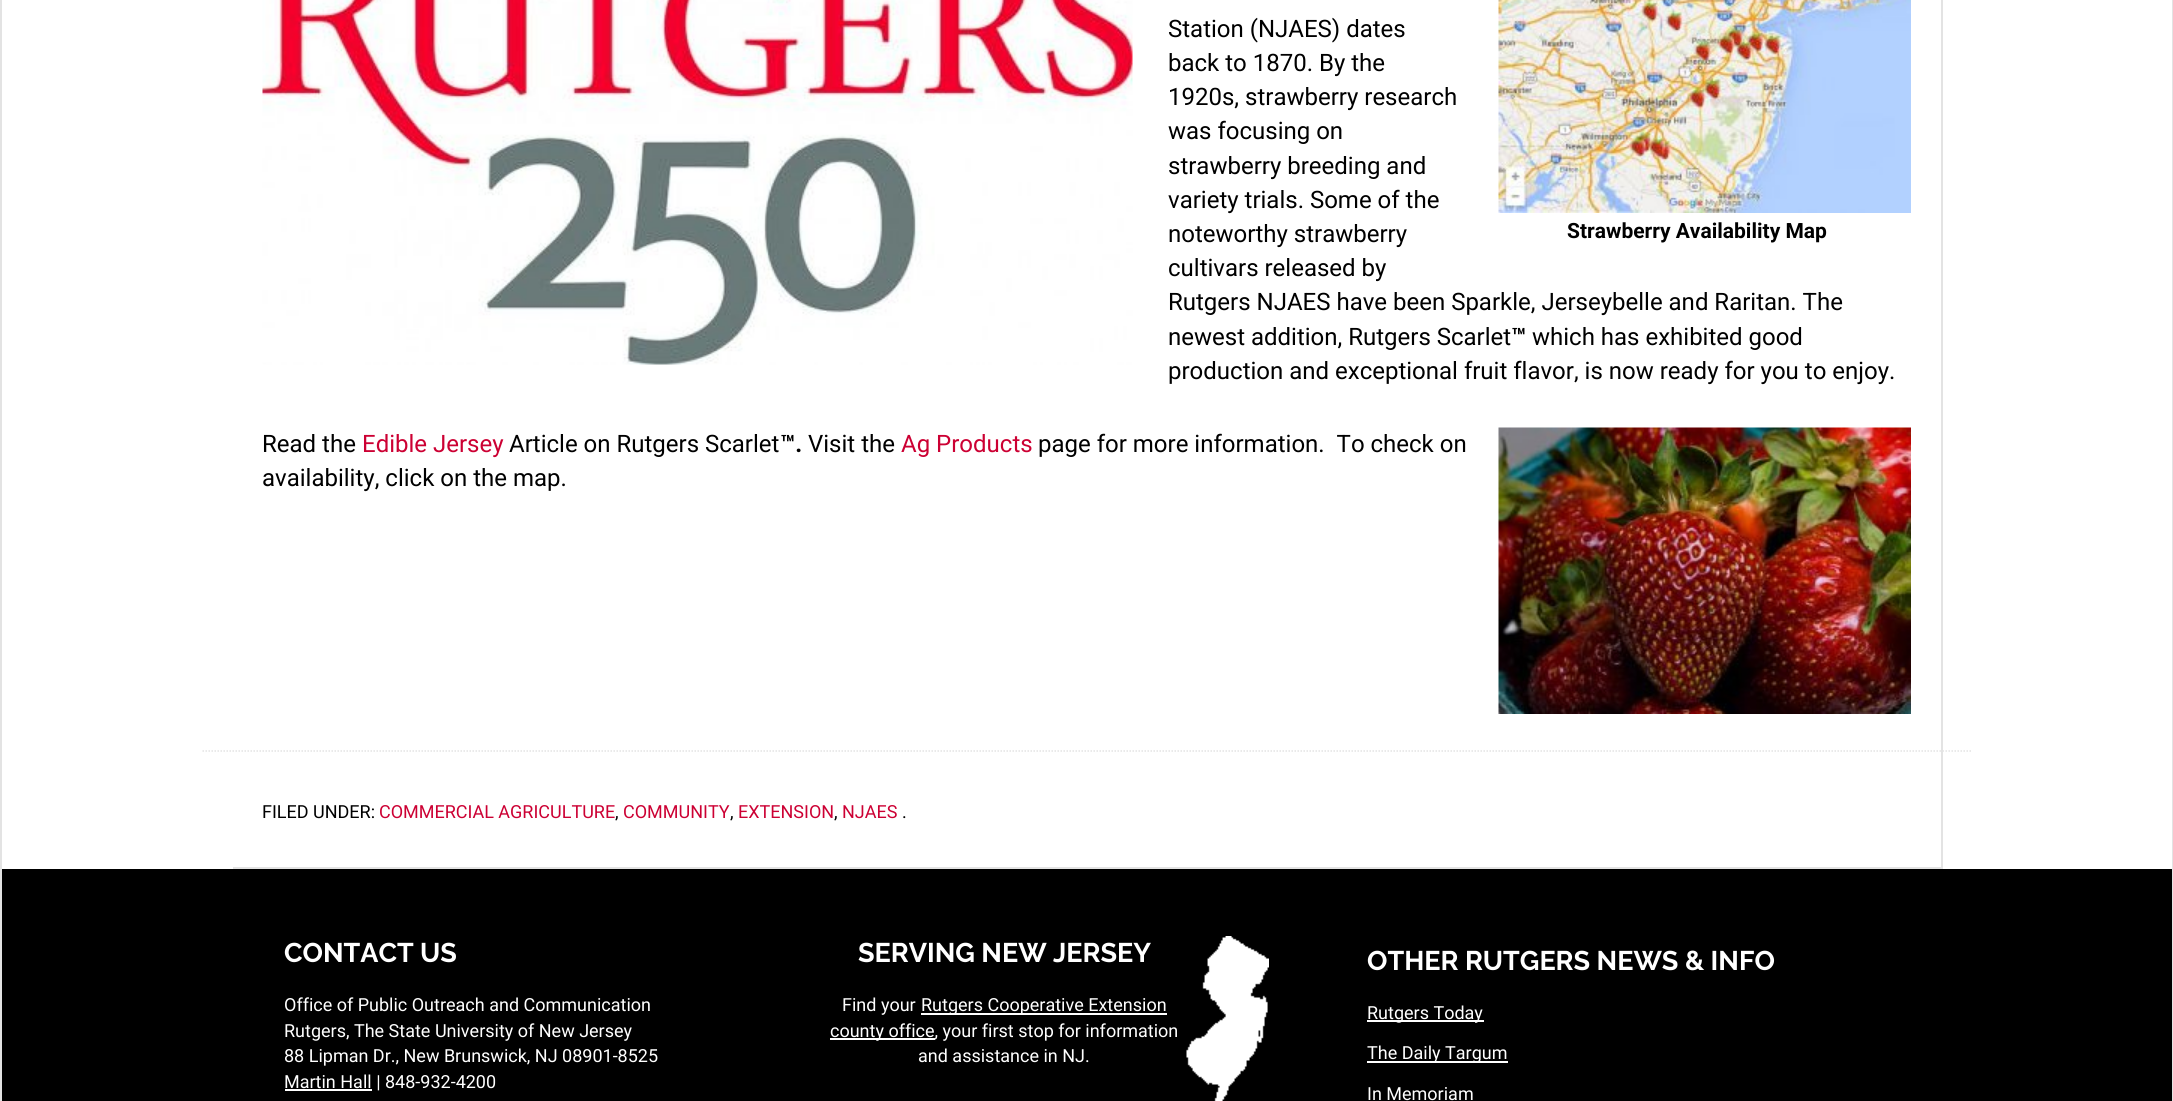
#include <cairo.h>
#include <math.h>
#include <stddef.h>

typedef struct { double x, y; const char *s; } line_t;

static void ink(cairo_t *ctx, unsigned color) {
    cairo_set_source_rgb(ctx, (color >> 16) / 255.0, (color >> 8 & 255) / 255.0, (color & 255) / 255.0);
}

static void paste(cairo_t *ctx, const char *path, double x, double y, double w, double h) {
    cairo_surface_t *image = cairo_image_surface_create_from_png(path);
    cairo_save(ctx);
    cairo_set_source_surface(ctx, image, x, y);
    cairo_rectangle(ctx, x, y, w, h);
    cairo_fill(ctx);
    cairo_restore(ctx);
    cairo_surface_destroy(image);
}

int main(void) {
    cairo_surface_t *surface = cairo_image_surface_create(CAIRO_FORMAT_RGB24, 2173, 1101);
    cairo_t *ctx = cairo_create(surface);
    cairo_font_options_t *options = cairo_font_options_create();
    cairo_font_options_set_hint_metrics(options, CAIRO_HINT_METRICS_OFF);
    cairo_font_options_set_hint_style(options, CAIRO_HINT_STYLE_NONE);
    cairo_set_font_options(ctx, options);
    cairo_set_miter_limit(ctx, 4);
    ink(ctx, 0xFFFFFF);
    cairo_paint(ctx);
    cairo_rectangle(ctx, 1, -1, 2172, 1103);
    ink(ctx, 0xE3E3E3);
    cairo_stroke(ctx);
    cairo_rectangle(ctx, 1941, 0, 2, 869);
    cairo_fill(ctx);
    cairo_rectangle(ctx, 233, 867, 1708, 2);
    cairo_fill(ctx);
    paste(ctx, "media/1.png", 262, 0, 871, 365);
    cairo_select_font_face(ctx, "Roboto", CAIRO_FONT_SLANT_NORMAL, CAIRO_FONT_WEIGHT_NORMAL);
    cairo_set_font_size(ctx, 24);
    ink(ctx, 0x000000);
    {
        static const line_t items[] = {
            {1168, 37, "Station (NJAES) dates"},
            {1168, 71, "back to 1870. By the"},
            {1168, 105, "1920s, strawberry research"},
            {1168, 139, "was focusing on"},
            {1168, 174, "strawberry breeding and"},
            {1168, 208, "variety trials. Some of the"},
            {1168, 242, "noteworthy strawberry"},
            {1168, 276, "cultivars released by"},
            {1168, 310, "Rutgers NJAES have been Sparkle, Jerseybelle and Raritan. The"},
            {1168, 345, "newest addition, Rutgers Scarlet"},
        };
        for (size_t i = 0; i < sizeof items / sizeof *items; i++) {
            cairo_move_to(ctx, items[i].x, items[i].y);
            cairo_show_text(ctx, items[i].s);
        }
    }
    cairo_select_font_face(ctx, "Roboto", CAIRO_FONT_SLANT_NORMAL, CAIRO_FONT_WEIGHT_BOLD);
    cairo_move_to(ctx, 1511, 345);
    cairo_show_text(ctx, "™");
    cairo_select_font_face(ctx, "Roboto", CAIRO_FONT_SLANT_NORMAL, CAIRO_FONT_WEIGHT_NORMAL);
    cairo_move_to(ctx, 1532, 345);
    cairo_show_text(ctx, "which has exhibited good");
    cairo_move_to(ctx, 1168, 379);
    cairo_show_text(ctx, "production and exceptional fruit flavor, is now ready for you to enjoy.");
    paste(ctx, "media/2.png", 1498, 0, 413, 213);
    cairo_select_font_face(ctx, "Roboto", CAIRO_FONT_SLANT_NORMAL, CAIRO_FONT_WEIGHT_BOLD);
    cairo_set_font_size(ctx, 21);
    cairo_move_to(ctx, 1567, 238);
    cairo_show_text(ctx, "Strawberry Availability Map");
    cairo_select_font_face(ctx, "Roboto", CAIRO_FONT_SLANT_NORMAL, CAIRO_FONT_WEIGHT_NORMAL);
    cairo_set_font_size(ctx, 24);
    cairo_move_to(ctx, 262, 452);
    cairo_show_text(ctx, "Read the");
    ink(ctx, 0xCC0033);
    cairo_move_to(ctx, 362, 452);
    cairo_show_text(ctx, "Edible Jersey");
    ink(ctx, 0x000000);
    cairo_move_to(ctx, 509, 452);
    cairo_show_text(ctx, "Article on Rutgers Scarlet");
    cairo_select_font_face(ctx, "Roboto", CAIRO_FONT_SLANT_NORMAL, CAIRO_FONT_WEIGHT_BOLD);
    cairo_move_to(ctx, 780, 452);
    cairo_show_text(ctx, "™.");
    cairo_select_font_face(ctx, "Roboto", CAIRO_FONT_SLANT_NORMAL, CAIRO_FONT_WEIGHT_NORMAL);
    cairo_move_to(ctx, 808, 452);
    cairo_show_text(ctx, "Visit the");
    ink(ctx, 0xCC0033);
    cairo_move_to(ctx, 901, 452);
    cairo_show_text(ctx, "Ag Products");
    ink(ctx, 0x000000);
    cairo_move_to(ctx, 1038, 452);
    cairo_show_text(ctx, "page for more information.  To check on");
    paste(ctx, "media/3.png", 1498, 427, 413, 287);
    cairo_move_to(ctx, 262, 486);
    cairo_show_text(ctx, "availability, click on the map.");
    cairo_new_path(ctx);
    cairo_move_to(ctx, 202.5, 751);
    cairo_line_to(ctx, 1971, 751);
    ink(ctx, 0xE3E3E3);
    cairo_set_line_width(ctx, 1.5);
    cairo_set_dash(ctx, (double[]){1.5, 1.5}, 2, 0);
    cairo_stroke(ctx);
    cairo_set_font_size(ctx, 18);
    ink(ctx, 0x000000);
    cairo_move_to(ctx, 262, 818);
    cairo_show_text(ctx, "FILED UNDER:");
    ink(ctx, 0xCC0033);
    cairo_move_to(ctx, 379, 818);
    cairo_show_text(ctx, "COMMERCIAL AGRICULTURE");
    ink(ctx, 0x000000);
    cairo_move_to(ctx, 615, 818);
    cairo_show_text(ctx, ",");
    ink(ctx, 0xCC0033);
    cairo_move_to(ctx, 623, 818);
    cairo_show_text(ctx, "COMMUNITY");
    ink(ctx, 0x000000);
    cairo_move_to(ctx, 730, 818);
    cairo_show_text(ctx, ",");
    ink(ctx, 0xCC0033);
    cairo_move_to(ctx, 738, 818);
    cairo_show_text(ctx, "EXTENSION");
    ink(ctx, 0x000000);
    cairo_move_to(ctx, 834, 818);
    cairo_show_text(ctx, ",");
    ink(ctx, 0xCC0033);
    cairo_move_to(ctx, 842, 818);
    cairo_show_text(ctx, "NJAES");
    ink(ctx, 0x000000);
    cairo_move_to(ctx, 902, 818);
    cairo_show_text(ctx, ".");
    cairo_rectangle(ctx, 2, 869, 2170, 232);
    cairo_fill(ctx);
    cairo_select_font_face(ctx, "Raleway", CAIRO_FONT_SLANT_NORMAL, CAIRO_FONT_WEIGHT_BOLD);
    cairo_set_font_size(ctx, 27);
    ink(ctx, 0xFFFFFF);
    cairo_move_to(ctx, 284, 962);
    cairo_show_text(ctx, "CONTACT US");
    cairo_select_font_face(ctx, "Roboto", CAIRO_FONT_SLANT_NORMAL, CAIRO_FONT_WEIGHT_NORMAL);
    cairo_set_font_size(ctx, 18);
    {
        static const line_t items[] = {
            {284, 1011, "Office of Public Outreach and Communication"},
            {284, 1037, "Rutgers, The State University of New Jersey"},
            {284, 1062, "88 Lipman Dr., New Brunswick, NJ 08901-8525"},
        };
        for (size_t i = 0; i < sizeof items / sizeof *items; i++) {
            cairo_move_to(ctx, items[i].x, items[i].y);
            cairo_show_text(ctx, items[i].s);
        }
    }
    cairo_rectangle(ctx, 285, 1089, 87, 2);
    cairo_fill(ctx);
    cairo_move_to(ctx, 284, 1088);
    cairo_show_text(ctx, "Martin Hall | 848-932-4200");
    cairo_select_font_face(ctx, "Raleway", CAIRO_FONT_SLANT_NORMAL, CAIRO_FONT_WEIGHT_BOLD);
    cairo_set_font_size(ctx, 27);
    cairo_move_to(ctx, 858, 962);
    cairo_show_text(ctx, "SERVING NEW JERSEY");
    paste(ctx, "media/4.png", 1186, 936, 83, 165);
    cairo_select_font_face(ctx, "Roboto", CAIRO_FONT_SLANT_NORMAL, CAIRO_FONT_WEIGHT_NORMAL);
    cairo_set_font_size(ctx, 18);
    cairo_move_to(ctx, 842, 1011);
    cairo_show_text(ctx, "Find your");
    cairo_rectangle(ctx, 921, 1013, 246, 2);
    cairo_fill(ctx);
    cairo_move_to(ctx, 921, 1011);
    cairo_show_text(ctx, "Rutgers Cooperative Extension");
    cairo_rectangle(ctx, 830, 1038, 105, 2);
    cairo_fill(ctx);
    cairo_move_to(ctx, 830, 1037);
    cairo_show_text(ctx, "county office, your first stop for information");
    cairo_move_to(ctx, 918, 1062);
    cairo_show_text(ctx, "and assistance in NJ.");
    cairo_select_font_face(ctx, "Raleway", CAIRO_FONT_SLANT_NORMAL, CAIRO_FONT_WEIGHT_BOLD);
    cairo_set_font_size(ctx, 27);
    cairo_move_to(ctx, 1367, 970);
    cairo_show_text(ctx, "OTHER RUTGERS NEWS & INFO");
    cairo_rectangle(ctx, 1367, 1020, 117, 2);
    cairo_fill(ctx);
    cairo_select_font_face(ctx, "Roboto", CAIRO_FONT_SLANT_NORMAL, CAIRO_FONT_WEIGHT_NORMAL);
    cairo_set_font_size(ctx, 18);
    cairo_move_to(ctx, 1367, 1019);
    cairo_show_text(ctx, "Rutgers Today");
    cairo_rectangle(ctx, 1367, 1061, 141, 2);
    cairo_fill(ctx);
    cairo_move_to(ctx, 1367, 1059);
    cairo_show_text(ctx, "The Daily Targum");
    cairo_move_to(ctx, 1367, 1100);
    cairo_show_text(ctx, "In Memoriam");
    cairo_surface_write_to_png(surface, "image.png");
    cairo_font_options_destroy(options);
    cairo_destroy(ctx);
    cairo_surface_destroy(surface);
    return 0;
}
